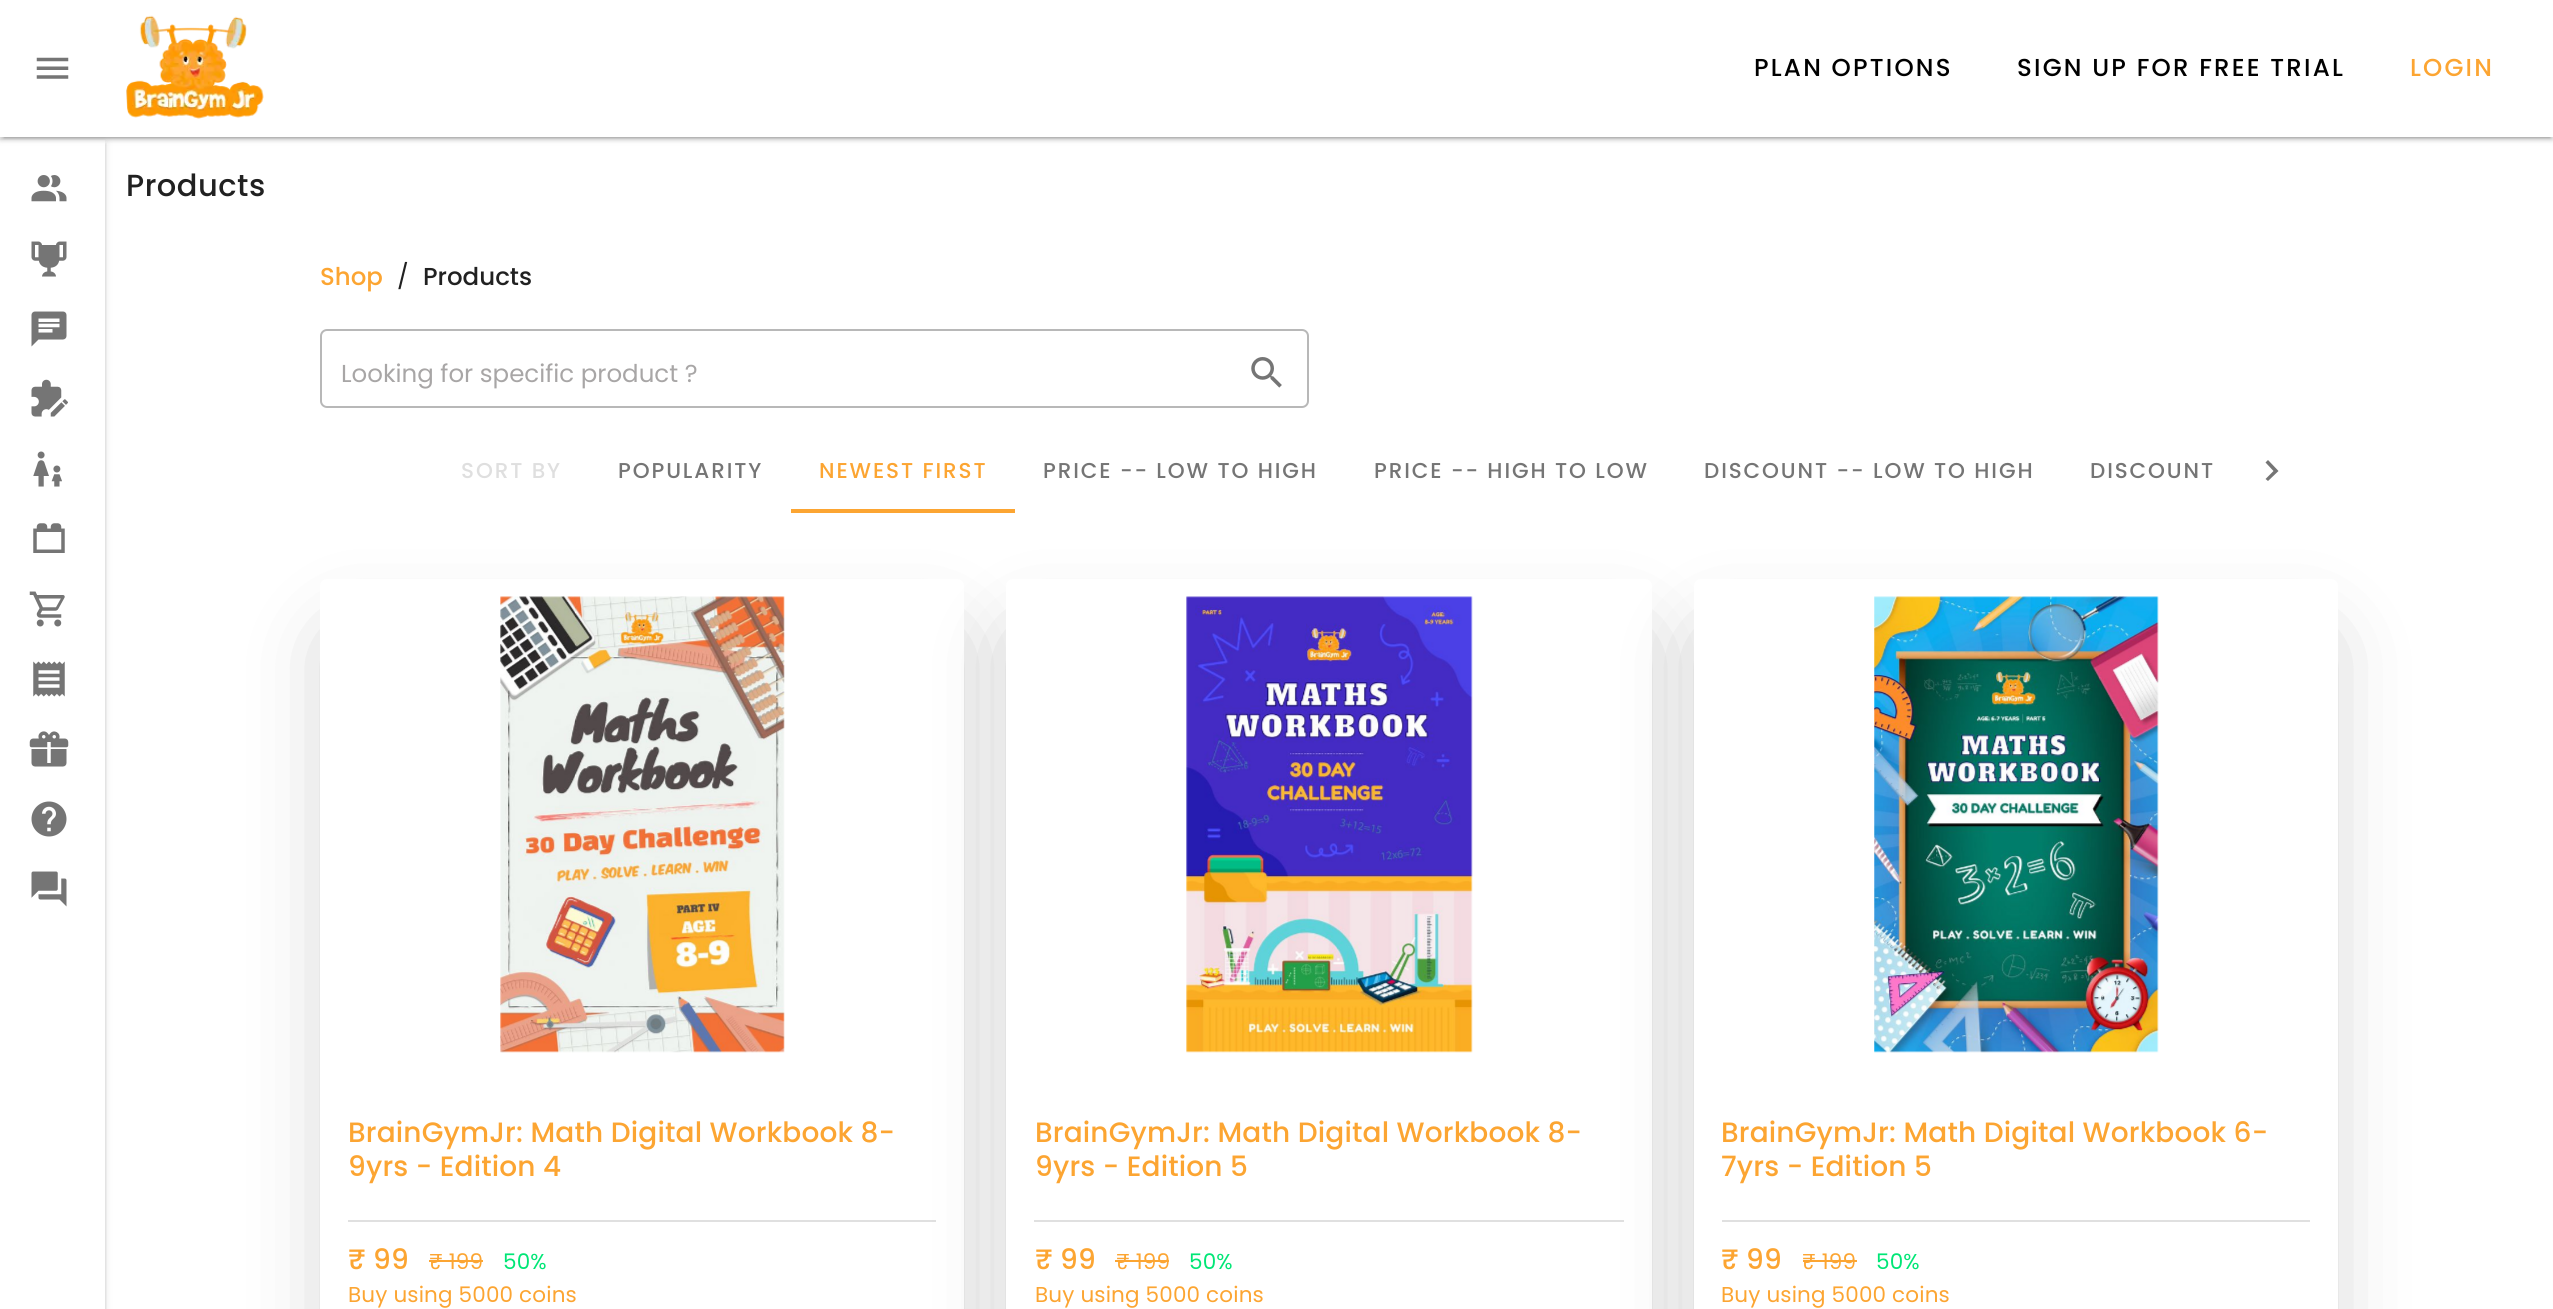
#include <cairo.h>
#include <math.h>
#include <stddef.h>

typedef struct { double x, y; const char *s; } line_t;

static void ink(cairo_t *ctx, unsigned color) {
    cairo_set_source_rgb(ctx, (color >> 16) / 255.0, (color >> 8 & 255) / 255.0, (color & 255) / 255.0);
}

static void write_spaced(cairo_t *ctx, double x, double y, const char *s, double letter, double word) {
    cairo_move_to(ctx, x, y);
    while (*s) {
        char ch[5] = {0};
        int n = 0;
        do ch[n++] = *s++; while ((*s & 0xC0) == 0x80);
        cairo_show_text(ctx, ch);
        cairo_rel_move_to(ctx, letter + word * (*ch == ' '), 0);
    }
}

static void round_path(cairo_t *ctx, double x, double y, double w, double h, double r) {
    cairo_new_sub_path(ctx);
    cairo_arc(ctx, x + w - r, y + h - r, r, 0, M_PI / 2);
    cairo_arc(ctx, x + r, y + h - r, r, M_PI / 2, M_PI);
    cairo_arc(ctx, x + r, y + r, r, M_PI, 1.5 * M_PI);
    cairo_arc(ctx, x + w - r, y + r, r, 1.5 * M_PI, 2 * M_PI);
    cairo_close_path(ctx);
}

static void blur_box(cairo_t *ctx, double x, double y, double w, double h, double r, double blur, double alpha) {
    cairo_push_group_with_content(ctx, CAIRO_CONTENT_ALPHA);
    cairo_set_operator(ctx, CAIRO_OPERATOR_SOURCE);
    for (int i = 15; i >= -15 && fmin(w, h) + blur * i / 3 > 0; i -= 2) {
        double e = blur * i / 6;
        cairo_set_source_rgba(ctx, 0, 0, 0, alpha * erfc((i - 1) / 8.5) / 2);
        round_path(ctx, x - e, y - e, w + 2 * e, h + 2 * e, fmax(0, fmin(r + e + blur * .6, fmin(w, h) / 2 + e)));
        cairo_fill(ctx);
    }
    cairo_pattern_t *soft = cairo_pop_group(ctx);
    cairo_mask(ctx, soft);
    cairo_pattern_destroy(soft);
}

static void paste(cairo_t *ctx, const char *path, double x, double y, double w, double h) {
    cairo_surface_t *image = cairo_image_surface_create_from_png(path);
    cairo_save(ctx);
    cairo_set_source_surface(ctx, image, x, y);
    cairo_rectangle(ctx, x, y, w, h);
    cairo_fill(ctx);
    cairo_restore(ctx);
    cairo_surface_destroy(image);
}

int main(void) {
    cairo_surface_t *surface = cairo_image_surface_create(CAIRO_FORMAT_RGB24, 2553, 1309);
    cairo_t *ctx = cairo_create(surface);
    cairo_font_options_t *options = cairo_font_options_create();
    cairo_font_options_set_hint_metrics(options, CAIRO_HINT_METRICS_OFF);
    cairo_font_options_set_hint_style(options, CAIRO_HINT_STYLE_NONE);
    cairo_set_font_options(ctx, options);
    cairo_set_miter_limit(ctx, 4);
    ink(ctx, 0xFFFFFF);
    cairo_paint(ctx);
    ink(ctx, 0x000000);
    blur_box(ctx, 0, 2, 2553, 136, 0, 4.5, 0.12);
    blur_box(ctx, 0, 4, 2553, 136, 0, 2, 0.14);
    blur_box(ctx, 4, 9, 2546, 129, 0, 1, 0.2);
    cairo_save(ctx);
    cairo_set_fill_rule(ctx, CAIRO_FILL_RULE_EVEN_ODD);
    cairo_new_path(ctx);
    cairo_move_to(ctx, 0, 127);
    cairo_line_to(ctx, 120, 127);
    cairo_line_to(ctx, 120, 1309);
    cairo_line_to(ctx, 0, 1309);
    cairo_close_path(ctx);
    cairo_move_to(ctx, 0, 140);
    cairo_line_to(ctx, 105, 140);
    cairo_line_to(ctx, 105, 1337);
    cairo_line_to(ctx, 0, 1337);
    cairo_close_path(ctx);
    cairo_clip(ctx);
    blur_box(ctx, 0, 142, 105, 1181, 0, 4.5, 0.12);
    cairo_restore(ctx);
    ink(ctx, 0xFFFFFF);
    cairo_rectangle(ctx, 0, 0, 2553, 137);
    cairo_fill(ctx);
    paste(ctx, "media/1.png", 36, 57, 33, 22);
    paste(ctx, "media/2.png", 126, 15, 138, 104);
    cairo_select_font_face(ctx, "Poppins Medium", CAIRO_FONT_SLANT_NORMAL, CAIRO_FONT_WEIGHT_NORMAL);
    cairo_set_font_size(ctx, 24.5);
    ink(ctx, 0x000000);
    write_spaced(ctx, 1754, 76, "PLAN OPTIONS", 2.2, 0);
    write_spaced(ctx, 2017, 76, "SIGN UP FOR FREE TRIAL", 2.2, 0);
    ink(ctx, 0xFCA532);
    write_spaced(ctx, 2410, 76, "LOGIN", 2.2, 0);
    cairo_save(ctx);
    cairo_rectangle(ctx, 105, 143, 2, 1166);
    cairo_clip(ctx);
    ink(ctx, 0x000000);
    blur_box(ctx, 0, 144, 105, 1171, 0, 2, 0.14);
    cairo_restore(ctx);
    paste(ctx, "media/3.png", 31, 175, 36, 27);
    paste(ctx, "media/4.png", 31, 241, 36, 36);
    paste(ctx, "media/5.png", 31, 311, 36, 36);
    paste(ctx, "media/6.png", 31, 379, 37, 38);
    paste(ctx, "media/7.png", 33, 451, 29, 36);
    paste(ctx, "media/8.png", 33, 523, 32, 30);
    paste(ctx, "media/9.png", 29, 591, 36, 36);
    paste(ctx, "media/10.png", 33, 661, 32, 36);
    paste(ctx, "media/11.png", 29, 731, 40, 36);
    paste(ctx, "media/12.png", 31, 801, 36, 36);
    paste(ctx, "media/13.png", 31, 871, 36, 36);
    cairo_set_font_size(ctx, 30.5);
    ink(ctx, 0x212121);
    write_spaced(ctx, 126, 196, "Products", 0.5, 0);
    cairo_set_font_size(ctx, 24.5);
    ink(ctx, 0xFCA532);
    cairo_move_to(ctx, 320, 285);
    cairo_show_text(ctx, "Shop");
    cairo_select_font_face(ctx, "Poppins", CAIRO_FONT_SLANT_NORMAL, CAIRO_FONT_WEIGHT_NORMAL);
    ink(ctx, 0x212121);
    cairo_move_to(ctx, 397, 285);
    cairo_show_text(ctx, "/");
    cairo_select_font_face(ctx, "Poppins Medium", CAIRO_FONT_SLANT_NORMAL, CAIRO_FONT_WEIGHT_NORMAL);
    cairo_move_to(ctx, 423, 285);
    cairo_show_text(ctx, "Products");
    round_path(ctx, 321, 330, 987, 77, 6);
    ink(ctx, 0xB8B8B8);
    cairo_stroke(ctx);
    cairo_select_font_face(ctx, "Poppins", CAIRO_FONT_SLANT_NORMAL, CAIRO_FONT_WEIGHT_NORMAL);
    ink(ctx, 0xA8A6A6);
    cairo_move_to(ctx, 341, 382);
    cairo_show_text(ctx, "Looking for specific product ?");
    paste(ctx, "media/14.png", 1251, 357, 31, 31);
    cairo_select_font_face(ctx, "Poppins Medium", CAIRO_FONT_SLANT_NORMAL, CAIRO_FONT_WEIGHT_NORMAL);
    cairo_set_font_size(ctx, 21.5);
    ink(ctx, 0xDFDFDF);
    write_spaced(ctx, 461, 478, "SORT BY", 1.9, 0);
    ink(ctx, 0x757575);
    write_spaced(ctx, 618, 478, "POPULARITY", 1.9, 0);
    ink(ctx, 0xFCA532);
    write_spaced(ctx, 819, 478, "NEWEST FIRST", 1.9, 0);
    ink(ctx, 0x757575);
    {
        static const line_t items[] = {
            {1043, 478, "PRICE -- LOW TO HIGH"},
            {1374, 478, "PRICE -- HIGH TO LOW"},
            {1704, 478, "DISCOUNT -- LOW TO HIGH"},
            {2090, 478, "DISCOUNT"},
        };
        for (size_t i = 0; i < sizeof items / sizeof *items; i++) {
            write_spaced(ctx, items[i].x, items[i].y, items[i].s, 1.9, 0);
        }
    }
    ink(ctx, 0xFCA532);
    cairo_rectangle(ctx, 791, 509, 224, 4);
    cairo_fill(ctx);
    ink(ctx, 0x757575);
    cairo_new_path(ctx);
    cairo_move_to(ctx, 2265.5, 479);
    cairo_line_to(ctx, 2273.5, 471);
    cairo_line_to(ctx, 2265.5, 462.5);
    cairo_line_to(ctx, 2268, 460);
    cairo_line_to(ctx, 2278.5, 471);
    cairo_line_to(ctx, 2268, 481);
    cairo_close_path(ctx);
    cairo_fill(ctx);
    ink(ctx, 0x000000);
    blur_box(ctx, 341, 644, 602, 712, 0, 44, 0.25);
    ink(ctx, 0xFFFFFF);
    cairo_new_path(ctx);
    cairo_move_to(ctx, 327, 579);
    cairo_line_to(ctx, 957, 579);
    cairo_curve_to(ctx, 961, 579, 964, 582, 964, 586);
    cairo_line_to(ctx, 964, 1309);
    cairo_line_to(ctx, 320, 1309);
    cairo_line_to(ctx, 320, 586);
    cairo_curve_to(ctx, 320, 582, 323, 579, 327, 579);
    cairo_close_path(ctx);
    cairo_fill(ctx);
    paste(ctx, "media/15.png", 500, 596, 285, 457);
    cairo_set_font_size(ctx, 28);
    ink(ctx, 0xFCA532);
    write_spaced(ctx, 348, 1142, "BrainGymJr: Math Digital Workbook 8-", 0.15, 0);
    write_spaced(ctx, 348, 1176, "9yrs - Edition 4", 0.15, 0);
    ink(ctx, 0xE0E0E0);
    cairo_rectangle(ctx, 348, 1220, 588, 2);
    cairo_fill(ctx);
    ink(ctx, 0xFCA532);
    write_spaced(ctx, 348, 1269, "₹ 99", 0.15, 0);
    cairo_select_font_face(ctx, "Poppins", CAIRO_FONT_SLANT_NORMAL, CAIRO_FONT_WEIGHT_NORMAL);
    cairo_set_font_size(ctx, 21.5);
    write_spaced(ctx, 429, 1269, "₹ 199", 0.15, 0);
    cairo_rectangle(ctx, 429, 1260, 54, 2);
    cairo_fill(ctx);
    ink(ctx, 0x00E676);
    write_spaced(ctx, 503, 1269, "50%", 0.15, 0);
    ink(ctx, 0xFCA532);
    write_spaced(ctx, 348, 1302, "Buy using 5000 coins", 0.15, 0);
    ink(ctx, 0x000000);
    blur_box(ctx, 1027, 644, 604, 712, 0, 44, 0.25);
    ink(ctx, 0xFFFFFF);
    cairo_new_path(ctx);
    cairo_move_to(ctx, 1013, 579);
    cairo_line_to(ctx, 1645, 579);
    cairo_curve_to(ctx, 1649, 579, 1652, 582, 1652, 586);
    cairo_line_to(ctx, 1652, 1309);
    cairo_line_to(ctx, 1006, 1309);
    cairo_line_to(ctx, 1006, 586);
    cairo_curve_to(ctx, 1006, 582, 1009, 579, 1013, 579);
    cairo_close_path(ctx);
    cairo_fill(ctx);
    paste(ctx, "media/16.png", 1186, 596, 287, 457);
    cairo_select_font_face(ctx, "Poppins Medium", CAIRO_FONT_SLANT_NORMAL, CAIRO_FONT_WEIGHT_NORMAL);
    cairo_set_font_size(ctx, 28);
    ink(ctx, 0xFCA532);
    write_spaced(ctx, 1035, 1142, "BrainGymJr: Math Digital Workbook 8-", 0.15, 0);
    write_spaced(ctx, 1035, 1176, "9yrs - Edition 5", 0.15, 0);
    ink(ctx, 0xE0E0E0);
    cairo_rectangle(ctx, 1034, 1220, 590, 2);
    cairo_fill(ctx);
    ink(ctx, 0xFCA532);
    write_spaced(ctx, 1035, 1269, "₹ 99", 0.15, 0);
    cairo_select_font_face(ctx, "Poppins", CAIRO_FONT_SLANT_NORMAL, CAIRO_FONT_WEIGHT_NORMAL);
    cairo_set_font_size(ctx, 21.5);
    write_spaced(ctx, 1116, 1269, "₹ 199", 0.15, 0);
    cairo_rectangle(ctx, 1115, 1260, 54, 2);
    cairo_fill(ctx);
    ink(ctx, 0x00E676);
    write_spaced(ctx, 1189, 1269, "50%", 0.15, 0);
    ink(ctx, 0xFCA532);
    write_spaced(ctx, 1035, 1302, "Buy using 5000 coins", 0.15, 0);
    ink(ctx, 0x000000);
    blur_box(ctx, 1715, 644, 602, 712, 0, 44, 0.25);
    ink(ctx, 0xFFFFFF);
    cairo_new_path(ctx);
    cairo_move_to(ctx, 1701, 579);
    cairo_line_to(ctx, 2331, 579);
    cairo_curve_to(ctx, 2335, 579, 2338, 582, 2338, 586);
    cairo_line_to(ctx, 2338, 1309);
    cairo_line_to(ctx, 1694, 1309);
    cairo_line_to(ctx, 1694, 586);
    cairo_curve_to(ctx, 1694, 582, 1697, 579, 1701, 579);
    cairo_close_path(ctx);
    cairo_fill(ctx);
    paste(ctx, "media/17.png", 1874, 596, 285, 457);
    cairo_select_font_face(ctx, "Poppins Medium", CAIRO_FONT_SLANT_NORMAL, CAIRO_FONT_WEIGHT_NORMAL);
    cairo_set_font_size(ctx, 28);
    ink(ctx, 0xFCA532);
    write_spaced(ctx, 1721, 1142, "BrainGymJr: Math Digital Workbook 6-", 0.15, 0);
    write_spaced(ctx, 1721, 1176, "7yrs - Edition 5", 0.15, 0);
    ink(ctx, 0xE0E0E0);
    cairo_rectangle(ctx, 1722, 1220, 588, 2);
    cairo_fill(ctx);
    ink(ctx, 0xFCA532);
    write_spaced(ctx, 1721, 1269, "₹ 99", 0.15, 0);
    cairo_select_font_face(ctx, "Poppins", CAIRO_FONT_SLANT_NORMAL, CAIRO_FONT_WEIGHT_NORMAL);
    cairo_set_font_size(ctx, 21.5);
    write_spaced(ctx, 1802, 1269, "₹ 199", 0.15, 0);
    cairo_rectangle(ctx, 1803, 1260, 54, 2);
    cairo_fill(ctx);
    ink(ctx, 0x00E676);
    write_spaced(ctx, 1876, 1269, "50%", 0.15, 0);
    ink(ctx, 0xFCA532);
    write_spaced(ctx, 1721, 1302, "Buy using 5000 coins", 0.15, 0);
    cairo_surface_write_to_png(surface, "image.png");
    cairo_font_options_destroy(options);
    cairo_destroy(ctx);
    cairo_surface_destroy(surface);
    return 0;
}
